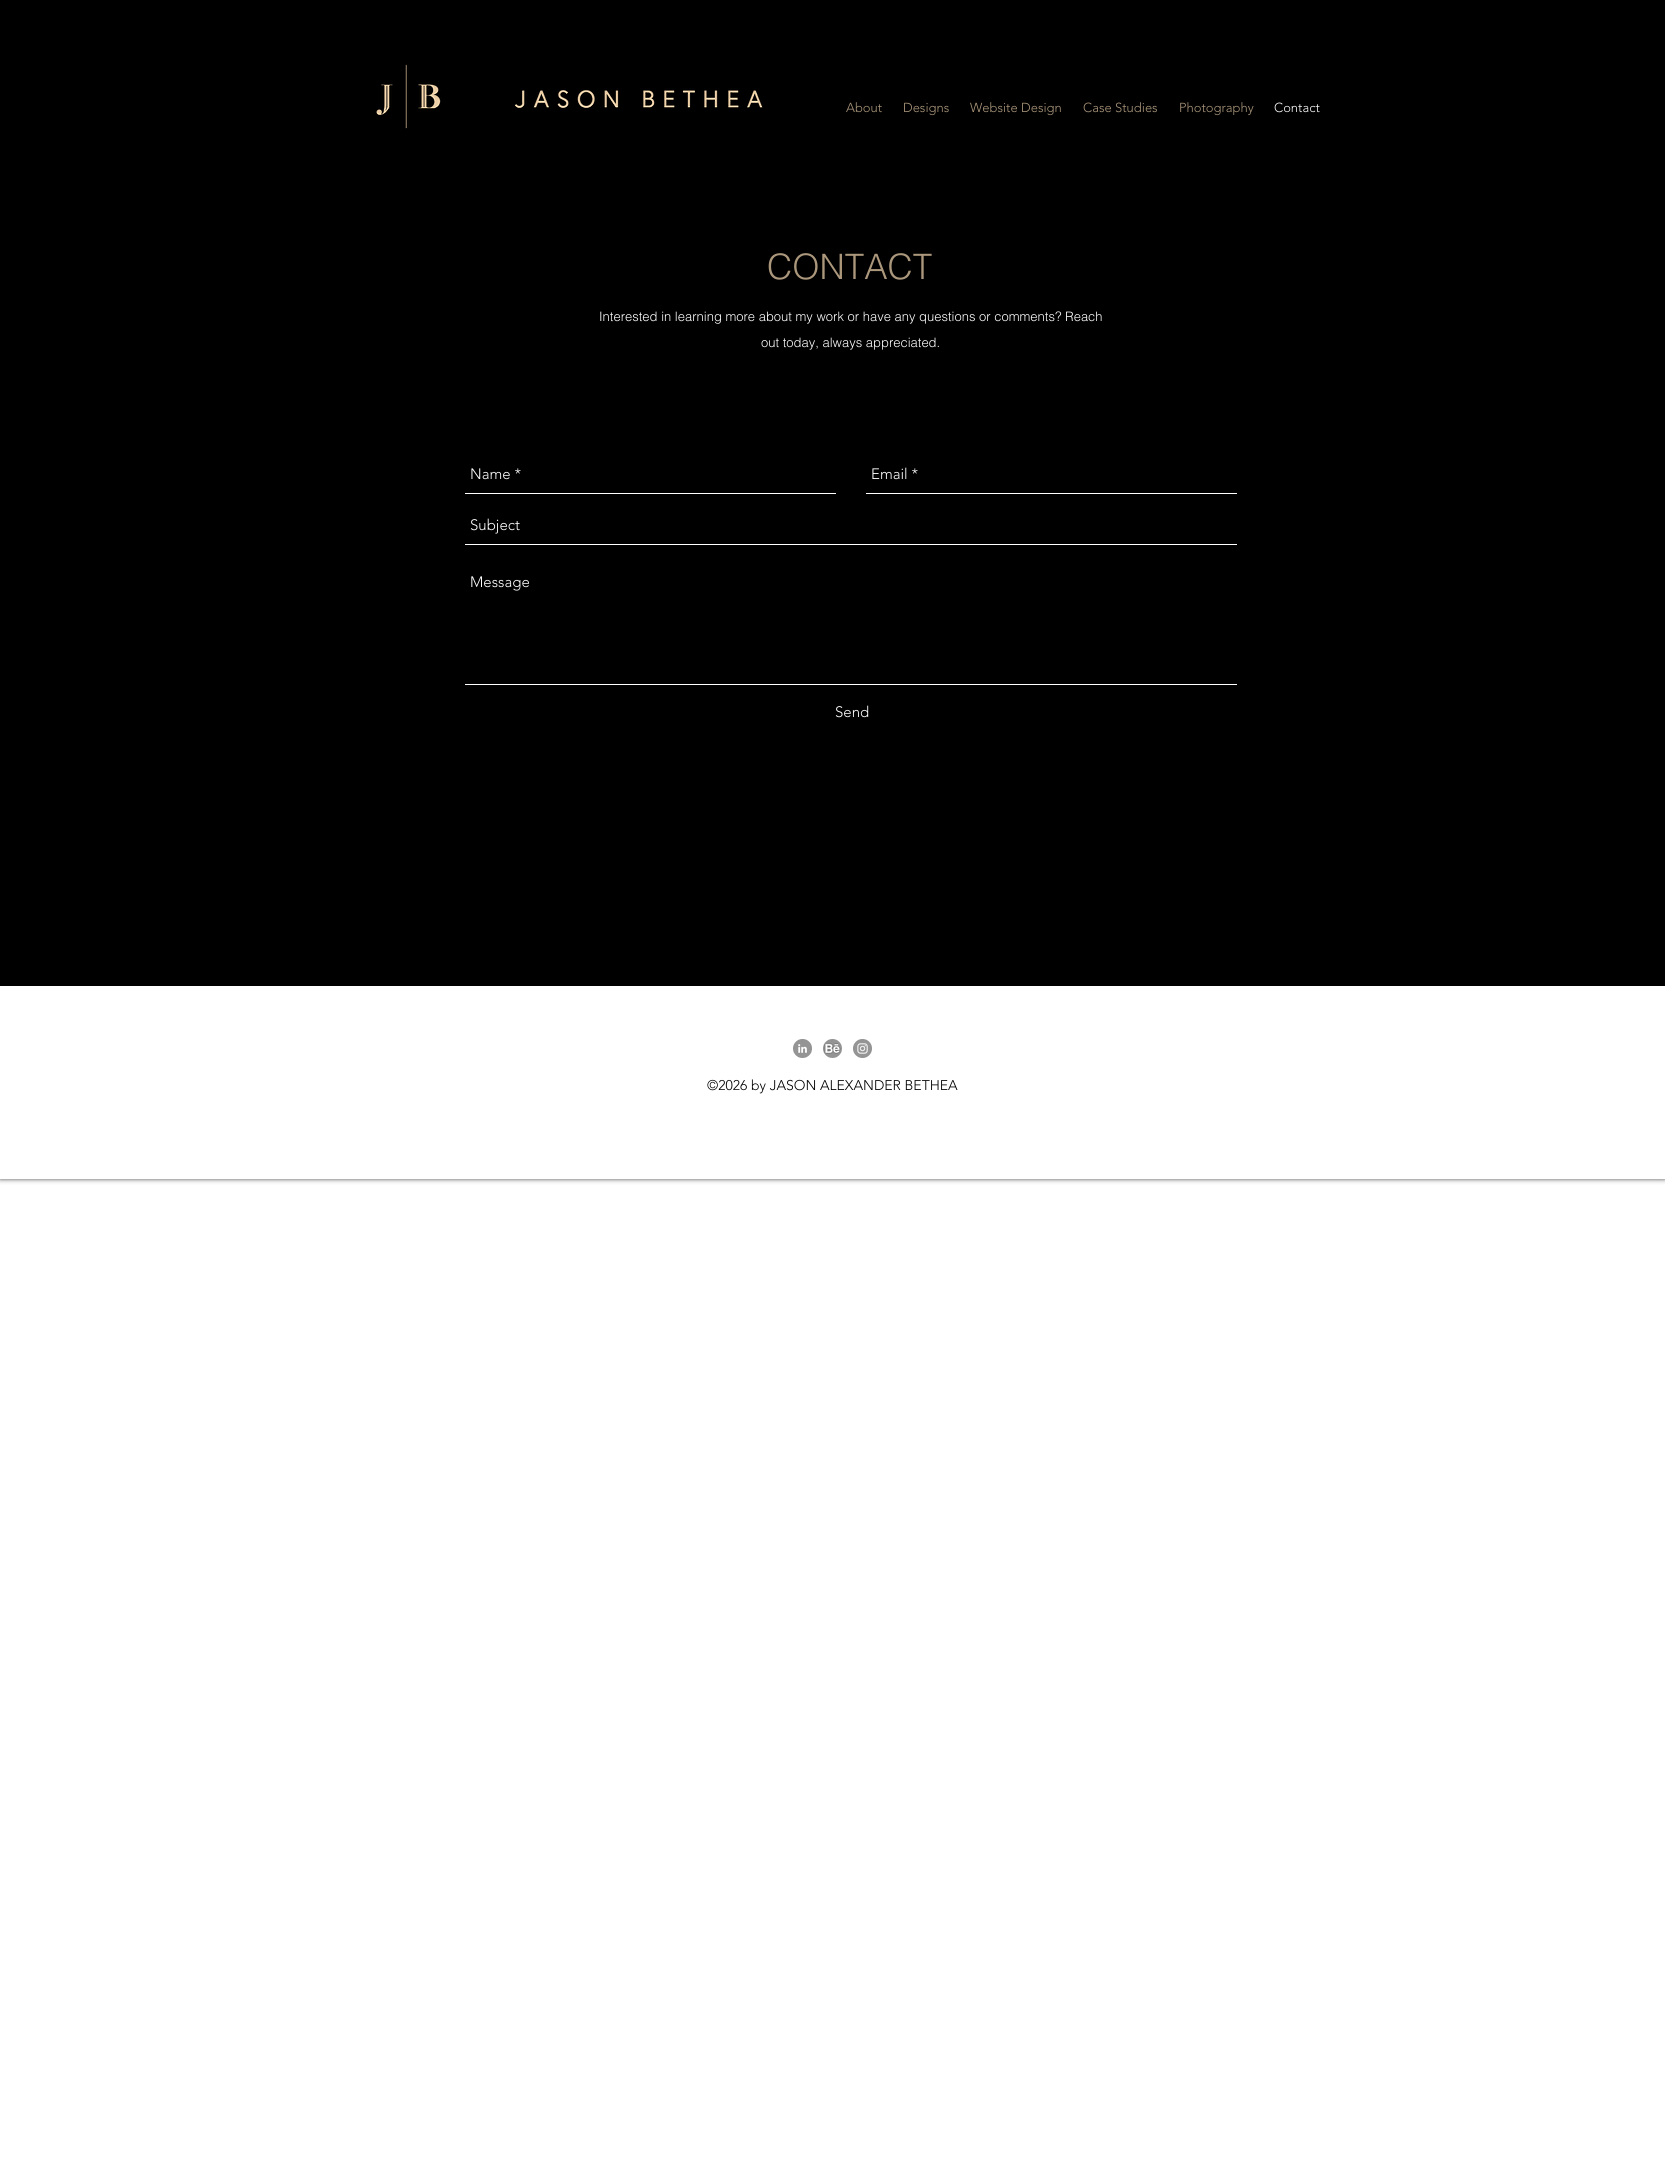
#include <cairo.h>
#include <math.h>
#include <stddef.h>

typedef struct { double x, y; const char *s; } line_t;

static void ink(cairo_t *ctx, unsigned color) {
    cairo_set_source_rgb(ctx, (color >> 16) / 255.0, (color >> 8 & 255) / 255.0, (color & 255) / 255.0);
}

static void round_path(cairo_t *ctx, double x, double y, double w, double h, double r) {
    cairo_new_sub_path(ctx);
    cairo_arc(ctx, x + w - r, y + h - r, r, 0, M_PI / 2);
    cairo_arc(ctx, x + r, y + h - r, r, M_PI / 2, M_PI);
    cairo_arc(ctx, x + r, y + r, r, M_PI, 1.5 * M_PI);
    cairo_arc(ctx, x + w - r, y + r, r, 1.5 * M_PI, 2 * M_PI);
    cairo_close_path(ctx);
}

static void blur_box(cairo_t *ctx, double x, double y, double w, double h, double r, double blur, double alpha) {
    cairo_push_group_with_content(ctx, CAIRO_CONTENT_ALPHA);
    cairo_set_operator(ctx, CAIRO_OPERATOR_SOURCE);
    for (int i = 15; i >= -15 && fmin(w, h) + blur * i / 3 > 0; i -= 2) {
        double e = blur * i / 6;
        cairo_set_source_rgba(ctx, 0, 0, 0, alpha * erfc((i - 1) / 8.5) / 2);
        round_path(ctx, x - e, y - e, w + 2 * e, h + 2 * e, fmax(0, fmin(r + e + blur * .6, fmin(w, h) / 2 + e)));
        cairo_fill(ctx);
    }
    cairo_pattern_t *soft = cairo_pop_group(ctx);
    cairo_mask(ctx, soft);
    cairo_pattern_destroy(soft);
}

static void paste(cairo_t *ctx, const char *path, double x, double y, double w, double h) {
    cairo_surface_t *image = cairo_image_surface_create_from_png(path);
    cairo_save(ctx);
    cairo_set_source_surface(ctx, image, x, y);
    cairo_rectangle(ctx, x, y, w, h);
    cairo_fill(ctx);
    cairo_restore(ctx);
    cairo_surface_destroy(image);
}

int main(void) {
    cairo_surface_t *surface = cairo_image_surface_create(CAIRO_FORMAT_RGB24, 1665, 2157);
    cairo_t *ctx = cairo_create(surface);
    cairo_font_options_t *options = cairo_font_options_create();
    cairo_font_options_set_hint_metrics(options, CAIRO_HINT_METRICS_OFF);
    cairo_font_options_set_hint_style(options, CAIRO_HINT_STYLE_NONE);
    cairo_set_font_options(ctx, options);
    cairo_set_miter_limit(ctx, 4);
    ink(ctx, 0xFFFFFF);
    cairo_paint(ctx);
    ink(ctx, 0x000000);
    cairo_rectangle(ctx, 0, 0, 1665, 986);
    cairo_fill(ctx);
    paste(ctx, "media/1.png", 376, 64, 387, 65);
    cairo_select_font_face(ctx, "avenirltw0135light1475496 Light", CAIRO_FONT_SLANT_NORMAL, CAIRO_FONT_WEIGHT_NORMAL);
    cairo_set_font_size(ctx, 13);
    ink(ctx, 0xAB977B);
    {
        static const line_t items[] = {
            {846, 112, "About"},
            {903, 112, "Designs"},
            {970, 112, "Website Design"},
            {1083, 112, "Case Studies"},
            {1179, 112, "Photography"},
        };
        for (size_t i = 0; i < sizeof items / sizeof *items; i++) {
            cairo_move_to(ctx, items[i].x, items[i].y);
            cairo_show_text(ctx, items[i].s);
        }
    }
    ink(ctx, 0xFFFFFF);
    cairo_move_to(ctx, 1274, 112);
    cairo_show_text(ctx, "Contact");
    cairo_select_font_face(ctx, "helvetica Light", CAIRO_FONT_SLANT_NORMAL, CAIRO_FONT_WEIGHT_NORMAL);
    cairo_set_font_size(ctx, 35);
    ink(ctx, 0xAB977B);
    cairo_move_to(ctx, 767, 279);
    cairo_show_text(ctx, "CONTACT");
    cairo_set_font_size(ctx, 13);
    ink(ctx, 0xFFFFFF);
    cairo_move_to(ctx, 599, 321);
    cairo_show_text(ctx, "Interested in learning more about my work or have any questions or comments? Reach");
    cairo_move_to(ctx, 761, 347);
    cairo_show_text(ctx, "out today, always appreciated.");
    cairo_rectangle(ctx, 465, 493, 371, 1);
    cairo_fill(ctx);
    cairo_select_font_face(ctx, "avenirltw0135light1475496 Light", CAIRO_FONT_SLANT_NORMAL, CAIRO_FONT_WEIGHT_NORMAL);
    cairo_set_font_size(ctx, 15);
    cairo_move_to(ctx, 470, 479);
    cairo_show_text(ctx, "Name *");
    cairo_rectangle(ctx, 866, 493, 371, 1);
    cairo_fill(ctx);
    cairo_move_to(ctx, 871, 479);
    cairo_show_text(ctx, "Email *");
    cairo_rectangle(ctx, 465, 544, 772, 1);
    cairo_fill(ctx);
    cairo_move_to(ctx, 470, 530);
    cairo_show_text(ctx, "Subject");
    cairo_rectangle(ctx, 465, 684, 772, 1);
    cairo_fill(ctx);
    cairo_move_to(ctx, 470, 587);
    cairo_show_text(ctx, "Message");
    cairo_move_to(ctx, 835, 717);
    cairo_show_text(ctx, "Send");
    cairo_save(ctx);
    cairo_set_fill_rule(ctx, CAIRO_FILL_RULE_EVEN_ODD);
    cairo_new_path(ctx);
    cairo_move_to(ctx, 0, 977);
    cairo_line_to(ctx, 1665, 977);
    cairo_line_to(ctx, 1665, 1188);
    cairo_line_to(ctx, 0, 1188);
    cairo_close_path(ctx);
    cairo_move_to(ctx, 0, 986);
    cairo_line_to(ctx, 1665, 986);
    cairo_line_to(ctx, 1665, 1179);
    cairo_line_to(ctx, 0, 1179);
    cairo_close_path(ctx);
    cairo_clip(ctx);
    ink(ctx, 0x000000);
    blur_box(ctx, 0, 986, 1665, 193, 0, 2.5, 0.7);
    cairo_restore(ctx);
    paste(ctx, "media/2.png", 793, 1039, 19, 19);
    paste(ctx, "media/3.png", 823, 1039, 19, 19);
    paste(ctx, "media/4.png", 853, 1039, 19, 19);
    cairo_set_font_size(ctx, 14);
    ink(ctx, 0x000000);
    cairo_move_to(ctx, 707, 1090);
    cairo_show_text(ctx, "©2026 by JASON ALEXANDER BETHEA");
    cairo_surface_write_to_png(surface, "image.png");
    cairo_font_options_destroy(options);
    cairo_destroy(ctx);
    cairo_surface_destroy(surface);
    return 0;
}
